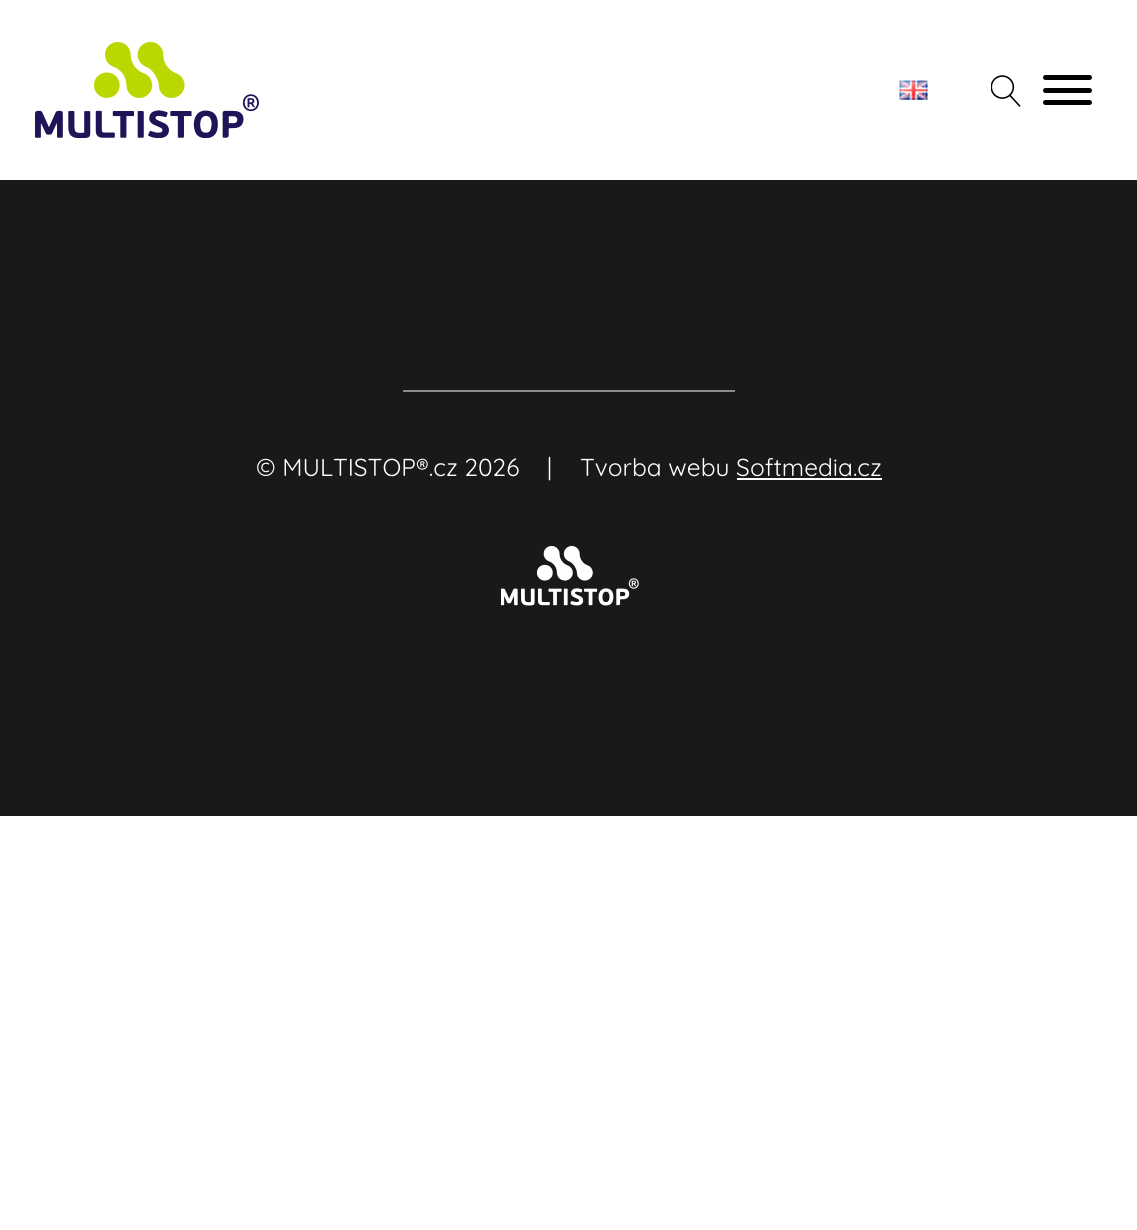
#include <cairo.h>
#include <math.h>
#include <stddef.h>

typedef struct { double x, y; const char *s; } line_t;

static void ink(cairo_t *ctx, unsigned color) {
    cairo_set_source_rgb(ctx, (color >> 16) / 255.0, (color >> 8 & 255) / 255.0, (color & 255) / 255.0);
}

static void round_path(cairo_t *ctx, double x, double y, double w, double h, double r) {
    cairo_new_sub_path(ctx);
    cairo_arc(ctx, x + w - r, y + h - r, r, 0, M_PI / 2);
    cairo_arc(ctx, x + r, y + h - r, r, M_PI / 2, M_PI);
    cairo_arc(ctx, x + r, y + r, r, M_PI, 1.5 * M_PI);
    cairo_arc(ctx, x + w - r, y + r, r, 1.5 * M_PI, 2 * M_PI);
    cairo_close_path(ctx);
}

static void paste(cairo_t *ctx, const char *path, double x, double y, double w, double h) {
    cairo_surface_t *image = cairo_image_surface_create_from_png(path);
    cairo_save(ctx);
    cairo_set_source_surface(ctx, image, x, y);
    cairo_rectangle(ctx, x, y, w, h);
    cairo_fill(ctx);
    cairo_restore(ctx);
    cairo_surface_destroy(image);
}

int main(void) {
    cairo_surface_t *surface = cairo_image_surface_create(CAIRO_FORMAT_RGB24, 1137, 1230);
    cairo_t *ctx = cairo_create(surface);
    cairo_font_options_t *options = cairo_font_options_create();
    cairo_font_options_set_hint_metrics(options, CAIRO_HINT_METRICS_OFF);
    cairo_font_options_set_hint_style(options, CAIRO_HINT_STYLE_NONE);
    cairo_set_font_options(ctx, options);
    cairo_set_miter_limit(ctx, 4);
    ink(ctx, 0xFFFFFF);
    cairo_paint(ctx);
    paste(ctx, "media/1.png", 35, 42, 224, 96);
    paste(ctx, "media/2.png", 899, 80, 29, 20);
    paste(ctx, "media/3.png", 991, 75, 30, 32);
    ink(ctx, 0x000000);
    round_path(ctx, 1043, 75, 49, 5, 2.5);
    cairo_fill(ctx);
    round_path(ctx, 1043, 88, 49, 5, 2.5);
    cairo_fill(ctx);
    round_path(ctx, 1043, 100, 49, 5, 2.5);
    cairo_fill(ctx);
    ink(ctx, 0x191919);
    cairo_rectangle(ctx, 0, 180, 1137, 636);
    cairo_fill(ctx);
    ink(ctx, 0x8C8C8C);
    cairo_rectangle(ctx, 403, 390, 332, 2);
    cairo_fill(ctx);
    cairo_select_font_face(ctx, "Quicksand Light", CAIRO_FONT_SLANT_NORMAL, CAIRO_FONT_WEIGHT_NORMAL);
    cairo_set_font_size(ctx, 24.5);
    ink(ctx, 0xFFFFFF);
    {
        static const line_t items[] = {
            {256, 476, "© MULTISTOP®.cz 2026"},
            {547, 476, "|"},
            {580, 476, "Tvorba webu Softmedia.cz"},
        };
        for (size_t i = 0; i < sizeof items / sizeof *items; i++) {
            cairo_move_to(ctx, items[i].x, items[i].y);
            cairo_show_text(ctx, items[i].s);
        }
    }
    cairo_rectangle(ctx, 737, 478, 145, 2);
    cairo_fill(ctx);
    paste(ctx, "media/4.png", 501, 546, 138, 60);
    cairo_surface_write_to_png(surface, "image.png");
    cairo_font_options_destroy(options);
    cairo_destroy(ctx);
    cairo_surface_destroy(surface);
    return 0;
}
